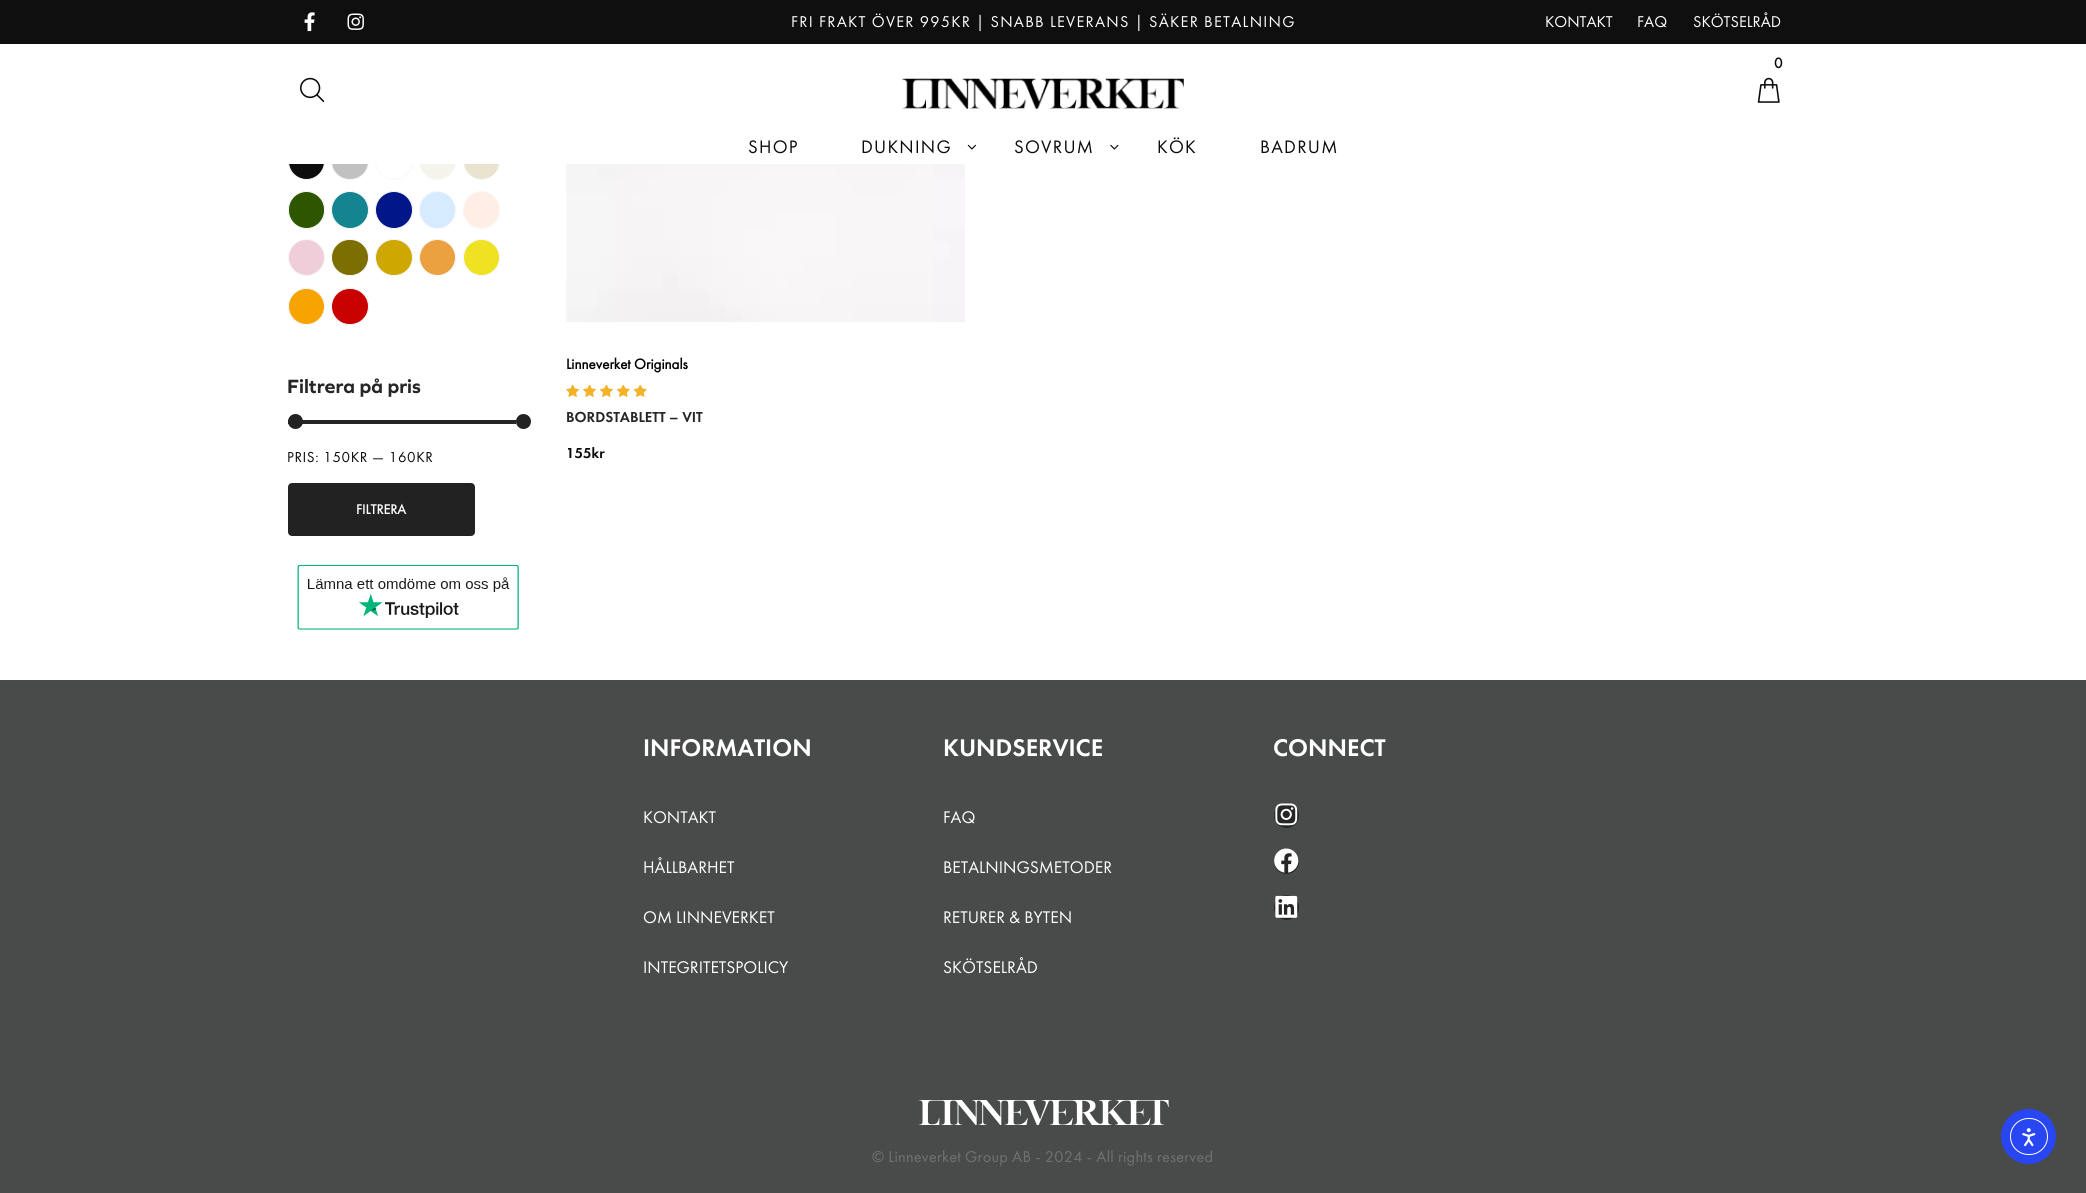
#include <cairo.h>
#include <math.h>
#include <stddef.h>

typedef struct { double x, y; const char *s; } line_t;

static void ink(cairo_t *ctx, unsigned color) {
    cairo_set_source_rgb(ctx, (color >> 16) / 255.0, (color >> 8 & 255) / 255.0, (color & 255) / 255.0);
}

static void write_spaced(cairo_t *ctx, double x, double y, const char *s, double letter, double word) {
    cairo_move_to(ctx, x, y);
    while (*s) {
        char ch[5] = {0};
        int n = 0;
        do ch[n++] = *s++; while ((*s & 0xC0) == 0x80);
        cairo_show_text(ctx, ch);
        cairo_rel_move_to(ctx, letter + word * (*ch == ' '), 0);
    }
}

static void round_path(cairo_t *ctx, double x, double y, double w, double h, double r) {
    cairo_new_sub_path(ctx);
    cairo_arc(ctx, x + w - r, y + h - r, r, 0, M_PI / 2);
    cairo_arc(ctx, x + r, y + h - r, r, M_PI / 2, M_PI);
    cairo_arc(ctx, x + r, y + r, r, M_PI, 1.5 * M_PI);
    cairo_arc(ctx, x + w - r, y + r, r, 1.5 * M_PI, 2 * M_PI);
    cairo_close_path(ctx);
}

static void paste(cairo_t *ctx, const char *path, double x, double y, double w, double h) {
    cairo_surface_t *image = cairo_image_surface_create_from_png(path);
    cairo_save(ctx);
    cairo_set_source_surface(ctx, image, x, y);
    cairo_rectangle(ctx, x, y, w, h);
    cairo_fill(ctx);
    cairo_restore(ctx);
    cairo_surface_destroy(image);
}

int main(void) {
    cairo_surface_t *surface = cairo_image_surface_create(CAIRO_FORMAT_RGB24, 2086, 1193);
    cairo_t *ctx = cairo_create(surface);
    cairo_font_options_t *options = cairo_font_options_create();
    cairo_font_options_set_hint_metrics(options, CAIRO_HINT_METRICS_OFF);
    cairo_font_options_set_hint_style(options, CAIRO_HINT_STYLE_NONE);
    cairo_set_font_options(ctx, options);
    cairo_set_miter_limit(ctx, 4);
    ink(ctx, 0xFFFFFF);
    cairo_paint(ctx);
    ink(ctx, 0x0F0F0F);
    cairo_rectangle(ctx, 0, 0, 2086, 44);
    cairo_fill(ctx);
    paste(ctx, "media/1.png", 304, 12, 11, 20);
    paste(ctx, "media/2.png", 347, 13, 17, 17);
    cairo_select_font_face(ctx, "Futura PT", CAIRO_FONT_SLANT_NORMAL, CAIRO_FONT_WEIGHT_NORMAL);
    cairo_set_font_size(ctx, 16.25);
    ink(ctx, 0xFFFFFF);
    write_spaced(ctx, 791, 27, "FRI FRAKT ÖVER 995KR | SNABB LEVERANS | SÄKER BETALNING", 1.25, 0);
    {
        static const line_t items[] = {
            {1545, 27, "KONTAKT"},
            {1637, 27, "FAQ"},
            {1693, 27, "SKÖTSELRÅD"},
        };
        for (size_t i = 0; i < sizeof items / sizeof *items; i++) {
            cairo_move_to(ctx, items[i].x, items[i].y);
            cairo_show_text(ctx, items[i].s);
        }
    }
    cairo_select_font_face(ctx, "Futura PT", CAIRO_FONT_SLANT_NORMAL, CAIRO_FONT_WEIGHT_BOLD);
    cairo_set_font_size(ctx, 15);
    ink(ctx, 0x0A0A0A);
    cairo_move_to(ctx, 1774, 68);
    cairo_show_text(ctx, "0");
    paste(ctx, "media/3.png", 1757, 77, 23, 26);
    paste(ctx, "media/4.png", 300, 77, 25, 25);
    paste(ctx, "media/5.png", 902, 78, 282, 31);
    ink(ctx, 0x0C0C0C);
    cairo_arc(ctx, 306.5, 161.5, 18, 0, 2 * M_PI);
    cairo_fill_preserve(ctx);
    ink(ctx, 0xF7F7F7);
    cairo_set_line_width(ctx, 1);
    cairo_stroke(ctx);
    ink(ctx, 0xC1C1C1);
    round_path(ctx, 331.5, 143.5, 37, 36, 18);
    cairo_fill_preserve(ctx);
    ink(ctx, 0xF7F7F7);
    cairo_stroke(ctx);
    round_path(ctx, 375.5, 143.5, 37, 36, 18);
    cairo_stroke(ctx);
    ink(ctx, 0xF4F4EB);
    cairo_arc(ctx, 437.5, 161.5, 18, 0, 2 * M_PI);
    cairo_fill_preserve(ctx);
    ink(ctx, 0xF7F7F7);
    cairo_stroke(ctx);
    ink(ctx, 0xEAE3D0);
    cairo_arc(ctx, 481.5, 161.5, 18, 0, 2 * M_PI);
    cairo_fill_preserve(ctx);
    ink(ctx, 0xF7F7F7);
    cairo_stroke(ctx);
    ink(ctx, 0xFFFFFF);
    cairo_rectangle(ctx, 288, 143, 212, 21);
    cairo_fill(ctx);
    cairo_select_font_face(ctx, "Futura PT", CAIRO_FONT_SLANT_NORMAL, CAIRO_FONT_WEIGHT_NORMAL);
    cairo_set_font_size(ctx, 18.75);
    ink(ctx, 0x0A0A0A);
    write_spaced(ctx, 748, 153, "SHOP", 1.25, 0);
    write_spaced(ctx, 861, 153, "DUKNING", 1.25, 0);
    paste(ctx, "media/6.png", 967, 144, 9, 6);
    write_spaced(ctx, 1014, 153, "SOVRUM", 1.25, 0);
    paste(ctx, "media/7.png", 1110, 144, 9, 6);
    write_spaced(ctx, 1157, 153, "KÖK", 1.25, 0);
    write_spaced(ctx, 1260, 153, "BADRUM", 1.25, 0);
    ink(ctx, 0x2E5600);
    round_path(ctx, 288.5, 191.5, 36, 37, 18);
    cairo_fill_preserve(ctx);
    ink(ctx, 0xF7F7F7);
    cairo_stroke(ctx);
    ink(ctx, 0x148491);
    cairo_arc(ctx, 350, 210, 18.5, 0, 2 * M_PI);
    cairo_fill_preserve(ctx);
    ink(ctx, 0xF7F7F7);
    cairo_stroke(ctx);
    ink(ctx, 0x001689);
    cairo_arc(ctx, 394, 210, 18.5, 0, 2 * M_PI);
    cairo_fill_preserve(ctx);
    ink(ctx, 0xF7F7F7);
    cairo_stroke(ctx);
    ink(ctx, 0xD6EBFF);
    round_path(ctx, 419.5, 191.5, 36, 37, 18);
    cairo_fill_preserve(ctx);
    ink(ctx, 0xF7F7F7);
    cairo_stroke(ctx);
    ink(ctx, 0xFFEEE5);
    round_path(ctx, 463.5, 191.5, 36, 37, 18);
    cairo_fill_preserve(ctx);
    ink(ctx, 0xF7F7F7);
    cairo_stroke(ctx);
    ink(ctx, 0xEFCED9);
    cairo_arc(ctx, 306.5, 257.5, 18, 0, 2 * M_PI);
    cairo_fill_preserve(ctx);
    ink(ctx, 0xF7F7F7);
    cairo_stroke(ctx);
    ink(ctx, 0x7C6E00);
    round_path(ctx, 331.5, 239.5, 37, 36, 18);
    cairo_fill_preserve(ctx);
    ink(ctx, 0xF7F7F7);
    cairo_stroke(ctx);
    ink(ctx, 0xCEA800);
    round_path(ctx, 375.5, 239.5, 37, 36, 18);
    cairo_fill_preserve(ctx);
    ink(ctx, 0xF7F7F7);
    cairo_stroke(ctx);
    ink(ctx, 0xEBA13F);
    cairo_arc(ctx, 437.5, 257.5, 18, 0, 2 * M_PI);
    cairo_fill_preserve(ctx);
    ink(ctx, 0xF7F7F7);
    cairo_stroke(ctx);
    ink(ctx, 0xEFE223);
    cairo_arc(ctx, 481.5, 257.5, 18, 0, 2 * M_PI);
    cairo_fill_preserve(ctx);
    ink(ctx, 0xF7F7F7);
    cairo_stroke(ctx);
    ink(ctx, 0xF7A400);
    cairo_arc(ctx, 306.5, 306.5, 18, 0, 2 * M_PI);
    cairo_fill_preserve(ctx);
    ink(ctx, 0xF7F7F7);
    cairo_stroke(ctx);
    ink(ctx, 0xC90000);
    round_path(ctx, 331.5, 288.5, 37, 36, 18);
    cairo_fill_preserve(ctx);
    ink(ctx, 0xF7F7F7);
    cairo_stroke(ctx);
    cairo_select_font_face(ctx, "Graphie", CAIRO_FONT_SLANT_NORMAL, CAIRO_FONT_WEIGHT_BOLD);
    cairo_set_font_size(ctx, 20);
    ink(ctx, 0x262626);
    cairo_move_to(ctx, 287, 393);
    cairo_show_text(ctx, "Filtrera på pris");
    cairo_rectangle(ctx, 288, 420, 228, 4);
    cairo_fill(ctx);
    ink(ctx, 0x222222);
    cairo_arc(ctx, 295.5, 421.5, 7.5, 0, 2 * M_PI);
    cairo_fill(ctx);
    cairo_arc(ctx, 523.5, 421.5, 7.5, 0, 2 * M_PI);
    cairo_fill(ctx);
    cairo_select_font_face(ctx, "Futura PT", CAIRO_FONT_SLANT_NORMAL, CAIRO_FONT_WEIGHT_NORMAL);
    cairo_set_font_size(ctx, 15);
    ink(ctx, 0x0A0A0A);
    write_spaced(ctx, 287, 462, "PRIS: 150KR — 160KR", 0.6, 0);
    ink(ctx, 0x222222);
    round_path(ctx, 289.5, 484.5, 184, 50, 2.5);
    cairo_fill_preserve(ctx);
    cairo_set_line_width(ctx, 3);
    cairo_stroke(ctx);
    cairo_select_font_face(ctx, "Futura PT", CAIRO_FONT_SLANT_NORMAL, CAIRO_FONT_WEIGHT_BOLD);
    cairo_set_font_size(ctx, 14);
    ink(ctx, 0xFFFFFF);
    cairo_move_to(ctx, 356, 514);
    cairo_show_text(ctx, "FILTRERA");
    paste(ctx, "media/8.png", 297, 564, 222, 66);
    paste(ctx, "media/9.png", 566, 164, 399, 158);
    cairo_set_font_size(ctx, 15);
    ink(ctx, 0x000000);
    cairo_move_to(ctx, 566, 369);
    cairo_show_text(ctx, "Linneverket Originals");
    paste(ctx, "media/10.png", 566, 385, 81, 12);
    paste(ctx, "media/11.png", 566, 385, 81, 12);
    cairo_select_font_face(ctx, "Futura PT Medium", CAIRO_FONT_SLANT_NORMAL, CAIRO_FONT_WEIGHT_NORMAL);
    ink(ctx, 0x262626);
    cairo_move_to(ctx, 566, 422);
    cairo_show_text(ctx, "BORDSTABLETT – VIT");
    ink(ctx, 0x0A0A0A);
    cairo_move_to(ctx, 566, 458);
    cairo_show_text(ctx, "155kr");
    ink(ctx, 0x494A4A);
    cairo_rectangle(ctx, 0, 680, 2086, 513);
    cairo_fill(ctx);
    cairo_set_font_size(ctx, 25);
    ink(ctx, 0xFFFFFF);
    cairo_move_to(ctx, 643, 756);
    cairo_show_text(ctx, "INFORMATION");
    cairo_select_font_face(ctx, "Futura PT", CAIRO_FONT_SLANT_NORMAL, CAIRO_FONT_WEIGHT_NORMAL);
    cairo_set_font_size(ctx, 17.5);
    {
        static const line_t items[] = {
            {643, 823, "KONTAKT"},
            {643, 873, "HÅLLBARHET"},
            {643, 923, "OM LINNEVERKET"},
            {643, 973, "INTEGRITETSPOLICY"},
        };
        for (size_t i = 0; i < sizeof items / sizeof *items; i++) {
            cairo_move_to(ctx, items[i].x, items[i].y);
            cairo_show_text(ctx, items[i].s);
        }
    }
    cairo_select_font_face(ctx, "Futura PT Medium", CAIRO_FONT_SLANT_NORMAL, CAIRO_FONT_WEIGHT_NORMAL);
    cairo_set_font_size(ctx, 25);
    cairo_move_to(ctx, 943, 756);
    cairo_show_text(ctx, "KUNDSERVICE");
    cairo_select_font_face(ctx, "Futura PT", CAIRO_FONT_SLANT_NORMAL, CAIRO_FONT_WEIGHT_NORMAL);
    cairo_set_font_size(ctx, 17.5);
    {
        static const line_t items[] = {
            {943, 823, "FAQ"},
            {943, 873, "BETALNINGSMETODER"},
            {943, 923, "RETURER & BYTEN"},
            {943, 973, "SKÖTSELRÅD"},
        };
        for (size_t i = 0; i < sizeof items / sizeof *items; i++) {
            cairo_move_to(ctx, items[i].x, items[i].y);
            cairo_show_text(ctx, items[i].s);
        }
    }
    cairo_select_font_face(ctx, "Futura PT Medium", CAIRO_FONT_SLANT_NORMAL, CAIRO_FONT_WEIGHT_NORMAL);
    cairo_set_font_size(ctx, 25);
    cairo_move_to(ctx, 1273, 756);
    cairo_show_text(ctx, "CONNECT");
    ink(ctx, 0x262626);
    cairo_new_path(ctx);
    cairo_arc(ctx, 1286.5, 815.5, 12.5, 0, 2 * M_PI);
    cairo_fill(ctx);
    paste(ctx, "media/12.png", 1275, 803, 23, 23);
    cairo_arc(ctx, 1286.5, 861.5, 12.5, 0, 2 * M_PI);
    cairo_fill(ctx);
    paste(ctx, "media/13.png", 1274, 848, 25, 25);
    cairo_arc(ctx, 1286.5, 907.5, 12.5, 0, 2 * M_PI);
    cairo_fill(ctx);
    paste(ctx, "media/14.png", 1275, 895, 23, 23);
    paste(ctx, "media/15.png", 919, 1100, 250, 25);
    cairo_select_font_face(ctx, "Futura PT", CAIRO_FONT_SLANT_NORMAL, CAIRO_FONT_WEIGHT_NORMAL);
    cairo_set_font_size(ctx, 16.25);
    ink(ctx, 0x707271);
    write_spaced(ctx, 872, 1162, "© Linneverket Group AB - 2024 - All rights reserved", 0.25, 0);
    ink(ctx, 0x2847F3);
    cairo_new_path(ctx);
    cairo_arc(ctx, 2028.5, 1136.5, 27.5, 0, 2 * M_PI);
    cairo_fill(ctx);
    round_path(ctx, 2010.5, 1118.5, 37, 36, 18);
    ink(ctx, 0xFFFFFF);
    cairo_set_line_width(ctx, 1);
    cairo_stroke(ctx);
    paste(ctx, "media/16.png", 2022, 1128, 14, 19);
    cairo_surface_write_to_png(surface, "image.png");
    cairo_font_options_destroy(options);
    cairo_destroy(ctx);
    cairo_surface_destroy(surface);
    return 0;
}
